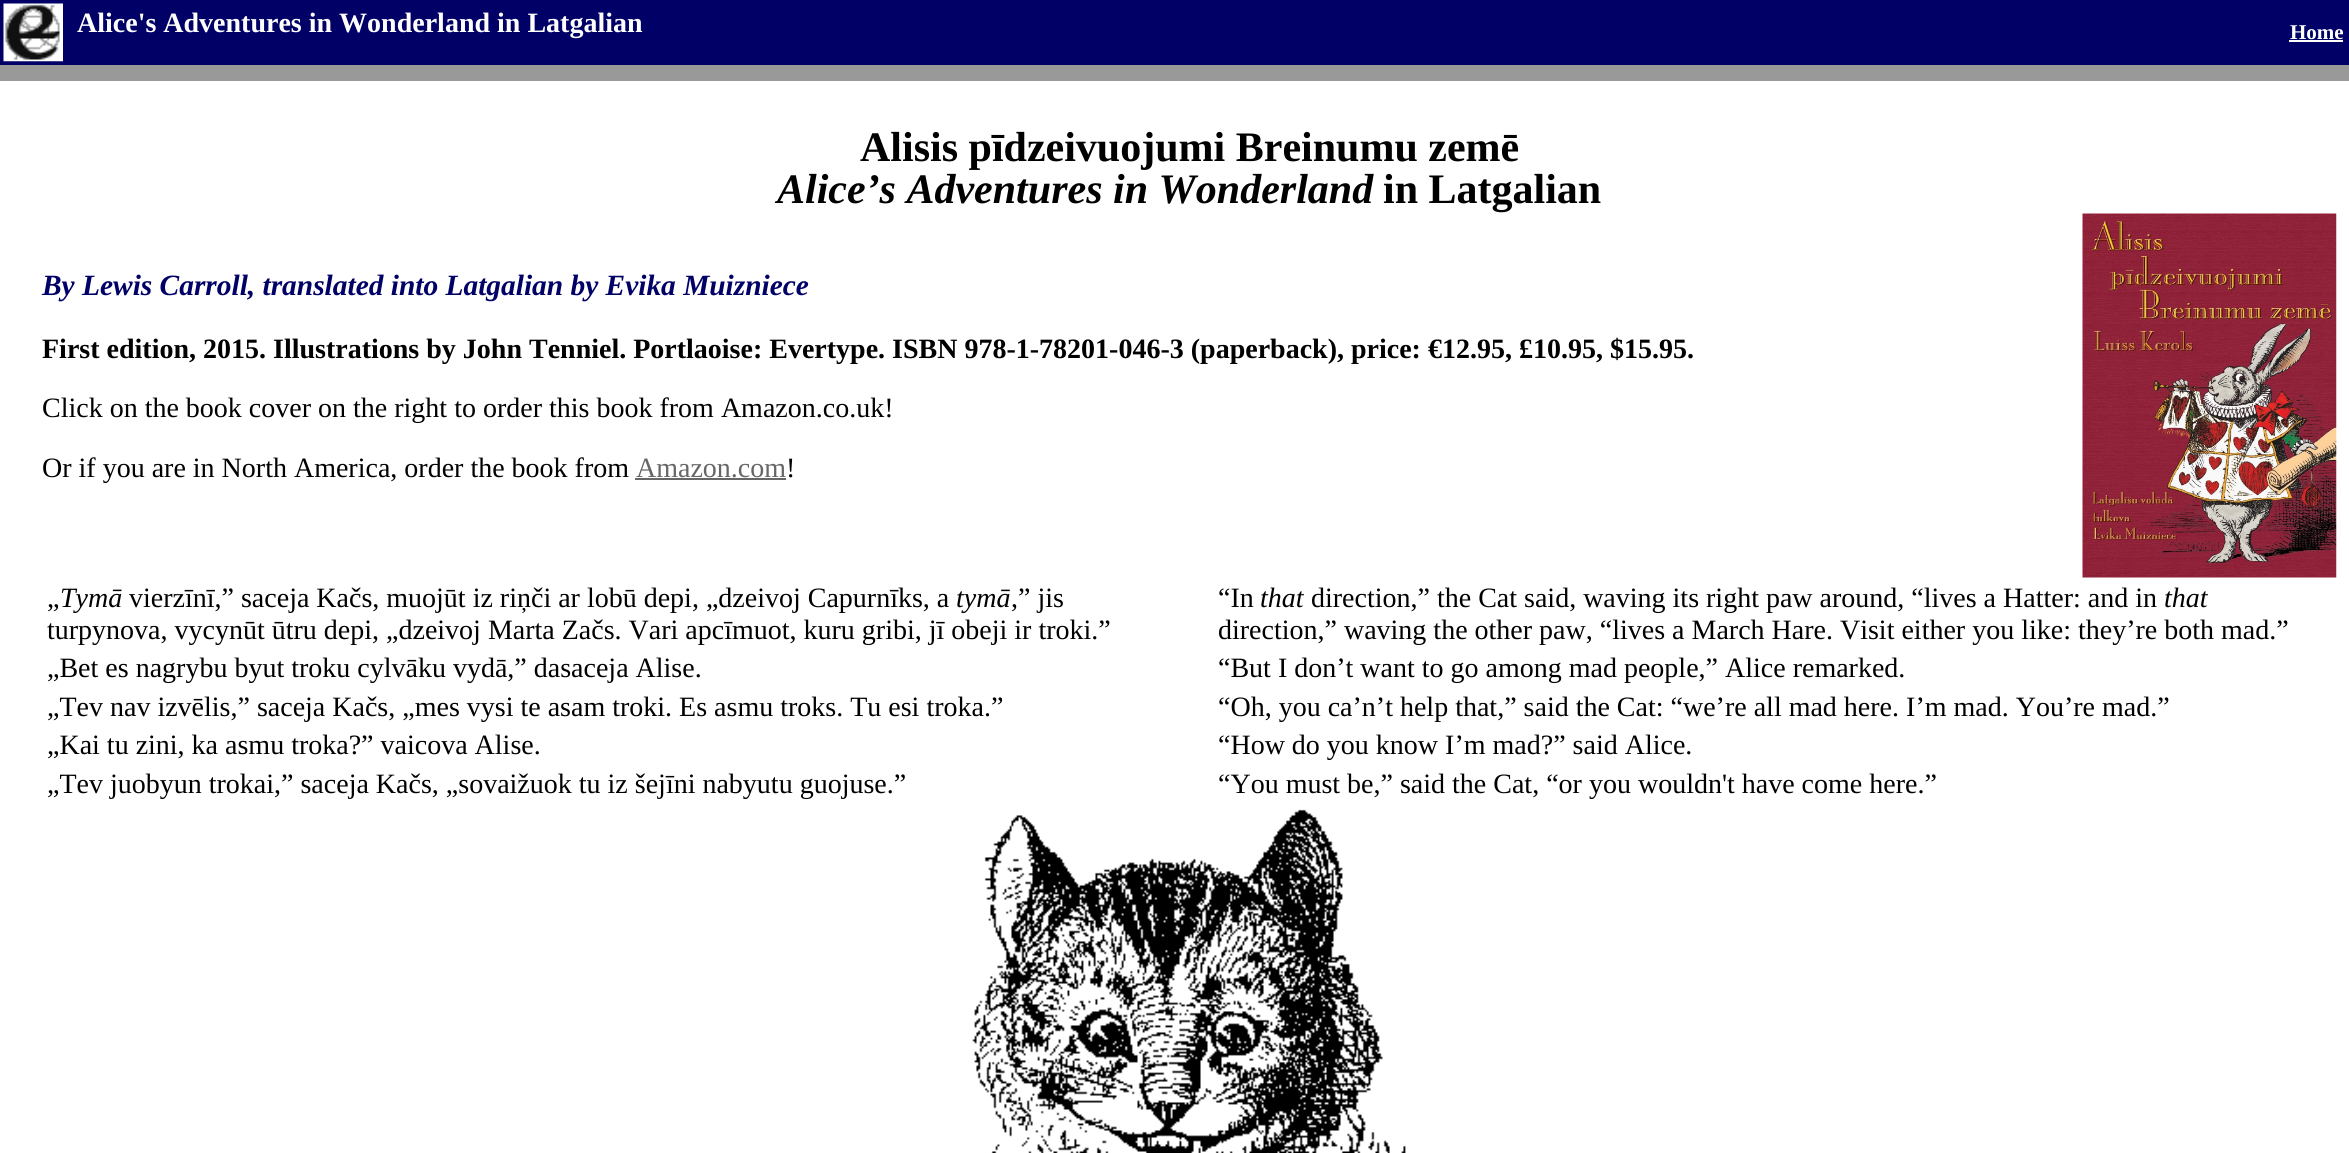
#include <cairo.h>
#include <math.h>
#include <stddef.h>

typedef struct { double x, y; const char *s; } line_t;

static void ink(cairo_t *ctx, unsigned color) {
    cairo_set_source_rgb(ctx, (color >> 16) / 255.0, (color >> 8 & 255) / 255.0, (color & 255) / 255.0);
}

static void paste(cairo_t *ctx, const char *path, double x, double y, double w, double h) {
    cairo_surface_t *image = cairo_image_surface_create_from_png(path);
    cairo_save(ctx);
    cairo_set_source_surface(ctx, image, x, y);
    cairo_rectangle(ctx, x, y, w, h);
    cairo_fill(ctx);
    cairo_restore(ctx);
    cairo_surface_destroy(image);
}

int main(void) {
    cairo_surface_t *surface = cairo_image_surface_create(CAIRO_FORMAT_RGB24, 2349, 1153);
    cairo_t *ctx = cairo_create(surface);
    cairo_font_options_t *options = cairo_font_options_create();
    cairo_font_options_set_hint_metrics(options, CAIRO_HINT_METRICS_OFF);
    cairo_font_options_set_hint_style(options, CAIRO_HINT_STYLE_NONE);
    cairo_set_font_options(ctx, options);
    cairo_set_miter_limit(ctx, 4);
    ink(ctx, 0xFFFFFF);
    cairo_paint(ctx);
    ink(ctx, 0x000066);
    cairo_rectangle(ctx, 0, 0, 2349, 65);
    cairo_fill(ctx);
    paste(ctx, "media/1.png", 3, 3, 60, 59);
    cairo_select_font_face(ctx, "Liberation Serif", CAIRO_FONT_SLANT_NORMAL, CAIRO_FONT_WEIGHT_BOLD);
    cairo_set_font_size(ctx, 28);
    ink(ctx, 0xFFFFFE);
    cairo_move_to(ctx, 77, 32);
    cairo_show_text(ctx, "Alice's Adventures in Wonderland in Latgalian");
    cairo_set_font_size(ctx, 21);
    cairo_move_to(ctx, 2290, 39);
    cairo_show_text(ctx, "Home");
    cairo_rectangle(ctx, 2289, 40, 54, 2);
    cairo_fill(ctx);
    ink(ctx, 0x999999);
    cairo_rectangle(ctx, 0, 65, 2349, 16);
    cairo_fill(ctx);
    cairo_set_font_size(ctx, 42);
    ink(ctx, 0x000000);
    cairo_move_to(ctx, 860, 161);
    cairo_show_text(ctx, "Alisis pīdzeivuojumi Breinumu zemē");
    cairo_select_font_face(ctx, "Liberation Serif", CAIRO_FONT_SLANT_ITALIC, CAIRO_FONT_WEIGHT_BOLD);
    cairo_move_to(ctx, 777, 203);
    cairo_show_text(ctx, "Alice’s Adventures in Wonderland");
    cairo_select_font_face(ctx, "Liberation Serif", CAIRO_FONT_SLANT_NORMAL, CAIRO_FONT_WEIGHT_BOLD);
    cairo_move_to(ctx, 1383, 203);
    cairo_show_text(ctx, "in Latgalian");
    cairo_select_font_face(ctx, "Liberation Serif", CAIRO_FONT_SLANT_ITALIC, CAIRO_FONT_WEIGHT_BOLD);
    cairo_set_font_size(ctx, 29.4);
    ink(ctx, 0x000066);
    cairo_move_to(ctx, 42, 295);
    cairo_show_text(ctx, "By Lewis Carroll, translated into Latgalian by Evika Muizniece");
    paste(ctx, "media/2.png", 2082, 213, 255, 365);
    cairo_select_font_face(ctx, "Liberation Serif", CAIRO_FONT_SLANT_NORMAL, CAIRO_FONT_WEIGHT_BOLD);
    cairo_set_font_size(ctx, 28);
    ink(ctx, 0x000000);
    cairo_move_to(ctx, 42, 358);
    cairo_show_text(ctx, "First edition, 2015. Illustrations by John Tenniel. Portlaoise: Evertype. ISBN 978-1-78201-046-3 (paperback), price: €12.95, £10.95, $15.95.");
    cairo_select_font_face(ctx, "Liberation Serif", CAIRO_FONT_SLANT_NORMAL, CAIRO_FONT_WEIGHT_NORMAL);
    cairo_move_to(ctx, 42, 417);
    cairo_show_text(ctx, "Click on the book cover on the right to order this book from Amazon.co.uk!");
    cairo_move_to(ctx, 42, 477);
    cairo_show_text(ctx, "Or if you are in North America, order the book from");
    ink(ctx, 0x666666);
    cairo_move_to(ctx, 636, 477);
    cairo_show_text(ctx, "Amazon.com");
    cairo_rectangle(ctx, 635, 478, 151, 2);
    cairo_fill(ctx);
    ink(ctx, 0x000000);
    cairo_move_to(ctx, 786, 477);
    cairo_show_text(ctx, "!");
    cairo_move_to(ctx, 47, 607);
    cairo_show_text(ctx, "„");
    cairo_select_font_face(ctx, "Liberation Serif", CAIRO_FONT_SLANT_ITALIC, CAIRO_FONT_WEIGHT_NORMAL);
    cairo_move_to(ctx, 60, 607);
    cairo_show_text(ctx, "Tymā");
    cairo_select_font_face(ctx, "Liberation Serif", CAIRO_FONT_SLANT_NORMAL, CAIRO_FONT_WEIGHT_NORMAL);
    cairo_move_to(ctx, 129, 607);
    cairo_show_text(ctx, "vierzīnī,” saceja Kačs, muojūt iz riņči ar lobū depi, „dzeivoj Capurnīks, a");
    cairo_select_font_face(ctx, "Liberation Serif", CAIRO_FONT_SLANT_ITALIC, CAIRO_FONT_WEIGHT_NORMAL);
    cairo_move_to(ctx, 956, 607);
    cairo_show_text(ctx, "tymā");
    cairo_select_font_face(ctx, "Liberation Serif", CAIRO_FONT_SLANT_NORMAL, CAIRO_FONT_WEIGHT_NORMAL);
    {
        static const line_t items[] = {
            {1011, 607, ",” jis"},
            {47, 639, "turpynova, vycynūt ūtru depi, „dzeivoj Marta Začs. Vari apcīmuot, kuru gribi, jī obeji ir troki.”"},
            {1218, 607, "“In"},
        };
        for (size_t i = 0; i < sizeof items / sizeof *items; i++) {
            cairo_move_to(ctx, items[i].x, items[i].y);
            cairo_show_text(ctx, items[i].s);
        }
    }
    cairo_select_font_face(ctx, "Liberation Serif", CAIRO_FONT_SLANT_ITALIC, CAIRO_FONT_WEIGHT_NORMAL);
    cairo_move_to(ctx, 1260, 607);
    cairo_show_text(ctx, "that");
    cairo_select_font_face(ctx, "Liberation Serif", CAIRO_FONT_SLANT_NORMAL, CAIRO_FONT_WEIGHT_NORMAL);
    cairo_move_to(ctx, 1311, 607);
    cairo_show_text(ctx, "direction,” the Cat said, waving its right paw around, “lives a Hatter: and in");
    cairo_select_font_face(ctx, "Liberation Serif", CAIRO_FONT_SLANT_ITALIC, CAIRO_FONT_WEIGHT_NORMAL);
    cairo_move_to(ctx, 2164, 607);
    cairo_show_text(ctx, "that");
    cairo_select_font_face(ctx, "Liberation Serif", CAIRO_FONT_SLANT_NORMAL, CAIRO_FONT_WEIGHT_NORMAL);
    {
        static const line_t items[] = {
            {1218, 639, "direction,” waving the other paw, “lives a March Hare. Visit either you like: they’re both mad.”"},
            {47, 677, "„Bet es nagrybu byut troku cylvāku vydā,” dasaceja Alise."},
            {1218, 677, "“But I don’t want to go among mad people,” Alice remarked."},
            {47, 716, "„Tev nav izvēlis,” saceja Kačs, „mes vysi te asam troki. Es asmu troks. Tu esi troka.”"},
            {1218, 716, "“Oh, you ca’n’t help that,” said the Cat: “we’re all mad here. I’m mad. You’re mad.”"},
            {47, 754, "„Kai tu zini, ka asmu troka?” vaicova Alise."},
            {1218, 754, "“How do you know I’m mad?” said Alice."},
            {47, 793, "„Tev juobyun trokai,” saceja Kačs, „sovaižuok tu iz šejīni nabyutu guojuse.”"},
            {1218, 793, "“You must be,” said the Cat, “or you wouldn't have come here.”"},
        };
        for (size_t i = 0; i < sizeof items / sizeof *items; i++) {
            cairo_move_to(ctx, items[i].x, items[i].y);
            cairo_show_text(ctx, items[i].s);
        }
    }
    paste(ctx, "media/3.png", 972, 809, 434, 344);
    cairo_surface_write_to_png(surface, "image.png");
    cairo_font_options_destroy(options);
    cairo_destroy(ctx);
    cairo_surface_destroy(surface);
    return 0;
}
